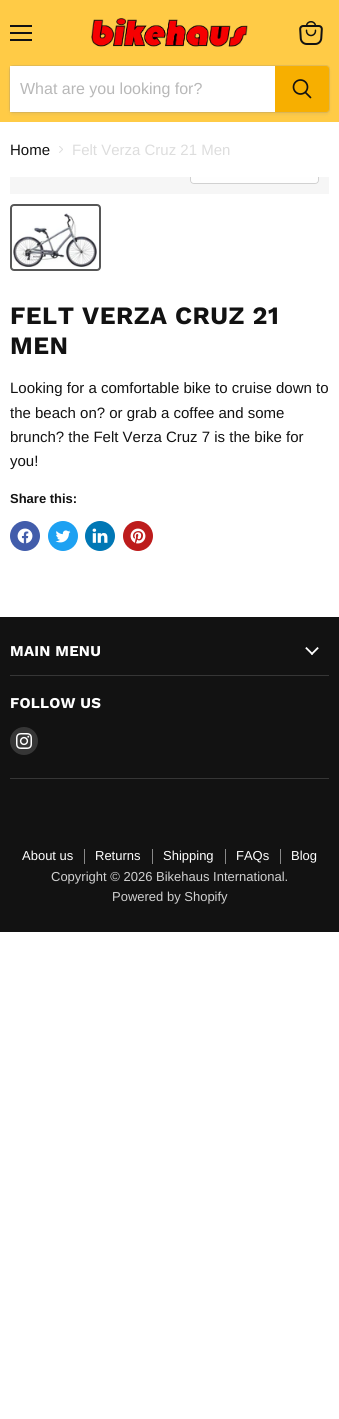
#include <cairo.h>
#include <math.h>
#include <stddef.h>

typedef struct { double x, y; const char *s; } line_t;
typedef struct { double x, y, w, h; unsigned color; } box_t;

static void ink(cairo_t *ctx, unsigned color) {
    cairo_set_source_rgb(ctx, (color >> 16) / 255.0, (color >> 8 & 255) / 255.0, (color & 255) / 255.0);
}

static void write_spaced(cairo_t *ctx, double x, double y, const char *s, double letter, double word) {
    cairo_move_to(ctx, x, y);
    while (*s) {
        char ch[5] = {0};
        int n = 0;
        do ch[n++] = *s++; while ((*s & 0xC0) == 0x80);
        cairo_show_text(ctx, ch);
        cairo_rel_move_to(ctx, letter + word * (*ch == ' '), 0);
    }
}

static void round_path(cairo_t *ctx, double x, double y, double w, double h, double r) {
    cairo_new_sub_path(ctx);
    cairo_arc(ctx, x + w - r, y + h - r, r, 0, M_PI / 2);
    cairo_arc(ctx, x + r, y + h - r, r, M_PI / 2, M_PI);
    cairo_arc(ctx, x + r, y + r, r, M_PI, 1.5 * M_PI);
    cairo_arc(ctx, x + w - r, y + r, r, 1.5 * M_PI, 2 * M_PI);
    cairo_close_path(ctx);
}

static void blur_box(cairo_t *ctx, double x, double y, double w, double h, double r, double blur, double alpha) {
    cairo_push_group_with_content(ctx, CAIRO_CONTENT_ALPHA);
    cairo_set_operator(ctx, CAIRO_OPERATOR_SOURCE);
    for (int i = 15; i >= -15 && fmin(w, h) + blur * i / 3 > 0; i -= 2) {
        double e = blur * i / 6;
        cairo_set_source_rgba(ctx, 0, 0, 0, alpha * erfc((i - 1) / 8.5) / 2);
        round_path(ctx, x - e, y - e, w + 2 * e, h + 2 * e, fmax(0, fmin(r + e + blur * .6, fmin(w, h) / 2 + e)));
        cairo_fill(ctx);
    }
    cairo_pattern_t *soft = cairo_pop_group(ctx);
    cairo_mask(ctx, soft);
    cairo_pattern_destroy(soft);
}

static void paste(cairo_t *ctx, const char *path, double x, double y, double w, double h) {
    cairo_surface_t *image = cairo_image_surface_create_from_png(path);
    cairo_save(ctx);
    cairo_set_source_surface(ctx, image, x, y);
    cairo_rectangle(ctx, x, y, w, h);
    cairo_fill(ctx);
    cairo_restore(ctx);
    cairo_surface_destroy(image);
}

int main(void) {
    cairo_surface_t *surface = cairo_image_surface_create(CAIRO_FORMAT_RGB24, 339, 1419);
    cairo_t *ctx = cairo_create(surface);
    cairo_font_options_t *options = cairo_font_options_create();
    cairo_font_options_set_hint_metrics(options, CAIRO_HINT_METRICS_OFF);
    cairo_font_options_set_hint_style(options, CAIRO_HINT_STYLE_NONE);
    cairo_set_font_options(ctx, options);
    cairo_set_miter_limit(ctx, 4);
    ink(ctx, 0xFFFFFF);
    cairo_paint(ctx);
    {
        static const box_t items[] = {
            {0, 0, 339, 122, 0xFFCB46},
            {10, 25, 22, 2, 0x121212},
            {10, 32, 22, 2, 0x121212},
            {10, 39, 22, 2, 0x121212},
        };
        for (size_t i = 0; i < sizeof items / sizeof *items; i++) {
            ink(ctx, items[i].color);
            cairo_rectangle(ctx, items[i].x, items[i].y, items[i].w, items[i].h);
            cairo_fill(ctx);
        }
    }
    paste(ctx, "media/1.png", 299, 21, 24, 24);
    paste(ctx, "media/2.png", 91, 18, 157, 29);
    ink(ctx, 0x808080);
    blur_box(ctx, 9, 67, 321, 48, 4, 1.5, 0.11);
    round_path(ctx, 9.5, 65.5, 320, 47, 3.5);
    cairo_set_source_rgba(ctx, 0.502, 0.502, 0.502, 0.2);
    cairo_set_line_width(ctx, 1);
    cairo_stroke(ctx);
    ink(ctx, 0xFFFFFF);
    cairo_rectangle(ctx, 10, 66, 265, 46);
    cairo_fill(ctx);
    cairo_select_font_face(ctx, "Liberation Sans", CAIRO_FONT_SLANT_NORMAL, CAIRO_FONT_WEIGHT_NORMAL);
    cairo_set_font_size(ctx, 16);
    ink(ctx, 0xB8B8B8);
    cairo_move_to(ctx, 20, 94);
    cairo_show_text(ctx, "What are you looking for?");
    ink(ctx, 0xF7AF00);
    cairo_new_path(ctx);
    cairo_move_to(ctx, 275.5, 66.5);
    cairo_line_to(ctx, 326, 66.5);
    cairo_curve_to(ctx, 327.5, 66.5, 328.5, 67.5, 328.5, 69);
    cairo_line_to(ctx, 328.5, 109);
    cairo_curve_to(ctx, 328.5, 110.5, 327.5, 111.5, 326, 111.5);
    cairo_line_to(ctx, 275.5, 111.5);
    cairo_close_path(ctx);
    cairo_fill_preserve(ctx);
    cairo_stroke(ctx);
    cairo_new_path(ctx);
    cairo_move_to(ctx, 310.5, 97.5);
    cairo_line_to(ctx, 305.5, 92.5);
    ink(ctx, 0x121212);
    cairo_set_line_width(ctx, 1.7);
    cairo_set_line_cap(ctx, CAIRO_LINE_CAP_ROUND);
    cairo_stroke(ctx);
    cairo_arc(ctx, 300.5, 87, 7, 0, 2 * M_PI);
    cairo_set_line_cap(ctx, CAIRO_LINE_CAP_BUTT);
    cairo_stroke(ctx);
    cairo_set_font_size(ctx, 15);
    cairo_move_to(ctx, 10, 155);
    cairo_show_text(ctx, "Home");
    paste(ctx, "media/3.png", 59, 146, 4, 7);
    ink(ctx, 0xDDDDDD);
    cairo_move_to(ctx, 72, 155);
    cairo_show_text(ctx, "Felt Verza Cruz 21 Men");
    ink(ctx, 0xF6F6F6);
    cairo_rectangle(ctx, 10, 177, 319, 17);
    cairo_fill(ctx);
    cairo_save(ctx);
    cairo_rectangle(ctx, 10, 177, 319, 17);
    cairo_clip(ctx);
    round_path(ctx, 190.5, 155.5, 128, 28, 3.5);
    ink(ctx, 0xD1D1D1);
    cairo_set_line_width(ctx, 1);
    cairo_stroke(ctx);
    cairo_restore(ctx);
    cairo_set_source_rgba(ctx, 1, 1, 1, 0.9);
    cairo_new_path(ctx);
    cairo_move_to(ctx, 191, 177);
    cairo_line_to(ctx, 318, 177);
    cairo_line_to(ctx, 318, 180);
    cairo_curve_to(ctx, 318, 181.5, 316.5, 183, 315, 183);
    cairo_line_to(ctx, 194, 183);
    cairo_curve_to(ctx, 192.5, 183, 191, 181.5, 191, 180);
    cairo_close_path(ctx);
    cairo_fill(ctx);
    round_path(ctx, 11, 205, 89, 65, 3);
    ink(ctx, 0x575757);
    cairo_set_line_width(ctx, 2);
    cairo_stroke(ctx);
    paste(ctx, "media/4.png", 13, 213, 84, 54);
    cairo_select_font_face(ctx, "Work Sans", CAIRO_FONT_SLANT_NORMAL, CAIRO_FONT_WEIGHT_BOLD);
    cairo_set_font_size(ctx, 25);
    ink(ctx, 0x121212);
    write_spaced(ctx, 10, 324, "FELT VERZA CRUZ 21", 0.5, 0);
    write_spaced(ctx, 10, 354, "MEN", 0.5, 0);
    cairo_select_font_face(ctx, "Liberation Sans", CAIRO_FONT_SLANT_NORMAL, CAIRO_FONT_WEIGHT_NORMAL);
    cairo_set_font_size(ctx, 15);
    {
        static const line_t items[] = {
            {10, 393, "Looking for a comfortable bike to cruise down to"},
            {10, 418, "the beach on? or grab a coffee and some"},
            {10, 442, "brunch? the Felt Verza Cruz 7 is the bike for"},
            {10, 466, "you!"},
        };
        for (size_t i = 0; i < sizeof items / sizeof *items; i++) {
            cairo_move_to(ctx, items[i].x, items[i].y);
            cairo_show_text(ctx, items[i].s);
        }
    }
    cairo_select_font_face(ctx, "Liberation Sans", CAIRO_FONT_SLANT_NORMAL, CAIRO_FONT_WEIGHT_BOLD);
    cairo_set_font_size(ctx, 13);
    cairo_move_to(ctx, 10, 503);
    cairo_show_text(ctx, "Share this:");
    ink(ctx, 0x425DAB);
    cairo_new_path(ctx);
    cairo_arc(ctx, 25, 536, 15, 0, 2 * M_PI);
    cairo_fill(ctx);
    paste(ctx, "media/5.png", 17, 528, 16, 16);
    ink(ctx, 0x1DA1F2);
    cairo_arc(ctx, 63, 536, 15, 0, 2 * M_PI);
    cairo_fill(ctx);
    paste(ctx, "media/6.png", 55, 530, 16, 13);
    ink(ctx, 0x0077B5);
    cairo_arc(ctx, 100, 536, 15, 0, 2 * M_PI);
    cairo_fill(ctx);
    paste(ctx, "media/7.png", 92, 528, 16, 15);
    ink(ctx, 0xBD1C1C);
    cairo_arc(ctx, 138, 536, 15, 0, 2 * M_PI);
    cairo_fill(ctx);
    paste(ctx, "media/8.png", 130, 528, 16, 16);
    ink(ctx, 0x121212);
    cairo_rectangle(ctx, 0, 617, 339, 315);
    cairo_fill(ctx);
    ink(ctx, 0x363636);
    cairo_rectangle(ctx, 10, 675, 319, 1);
    cairo_fill(ctx);
    cairo_select_font_face(ctx, "Work Sans", CAIRO_FONT_SLANT_NORMAL, CAIRO_FONT_WEIGHT_BOLD);
    cairo_set_font_size(ctx, 15);
    ink(ctx, 0xFFFFFF);
    write_spaced(ctx, 10, 656, "MAIN MENU", 0.25, 0);
    paste(ctx, "media/9.png", 305, 647, 14, 8);
    ink(ctx, 0x363636);
    cairo_rectangle(ctx, 10, 778, 319, 1);
    cairo_fill(ctx);
    ink(ctx, 0xFFFFFF);
    write_spaced(ctx, 10, 708, "FOLLOW US", 0.25, 0);
    ink(ctx, 0x363636);
    cairo_new_path(ctx);
    cairo_arc(ctx, 24, 741, 14, 0, 2 * M_PI);
    cairo_fill(ctx);
    paste(ctx, "media/10.png", 16, 733, 16, 16);
    ink(ctx, 0x898989);
    cairo_rectangle(ctx, 84, 849, 1, 15);
    cairo_fill(ctx);
    cairo_select_font_face(ctx, "Liberation Sans", CAIRO_FONT_SLANT_NORMAL, CAIRO_FONT_WEIGHT_NORMAL);
    cairo_set_font_size(ctx, 13);
    ink(ctx, 0xFFFFFF);
    cairo_move_to(ctx, 22, 860);
    cairo_show_text(ctx, "About us");
    ink(ctx, 0x898989);
    cairo_rectangle(ctx, 152, 849, 1, 15);
    cairo_fill(ctx);
    ink(ctx, 0xFFFFFF);
    cairo_move_to(ctx, 95, 860);
    cairo_show_text(ctx, "Returns");
    ink(ctx, 0x898989);
    cairo_rectangle(ctx, 225, 849, 1, 15);
    cairo_fill(ctx);
    ink(ctx, 0xFFFFFF);
    cairo_move_to(ctx, 163, 860);
    cairo_show_text(ctx, "Shipping");
    ink(ctx, 0x898989);
    cairo_rectangle(ctx, 280, 849, 1, 15);
    cairo_fill(ctx);
    ink(ctx, 0xFFFFFF);
    cairo_move_to(ctx, 236, 860);
    cairo_show_text(ctx, "FAQs");
    cairo_move_to(ctx, 291, 860);
    cairo_show_text(ctx, "Blog");
    ink(ctx, 0xD0D0D0);
    cairo_move_to(ctx, 51, 881);
    cairo_show_text(ctx, "Copyright © 2026 Bikehaus International.");
    cairo_move_to(ctx, 112, 901);
    cairo_show_text(ctx, "Powered by Shopify");
    cairo_surface_write_to_png(surface, "image.png");
    cairo_font_options_destroy(options);
    cairo_destroy(ctx);
    cairo_surface_destroy(surface);
    return 0;
}
